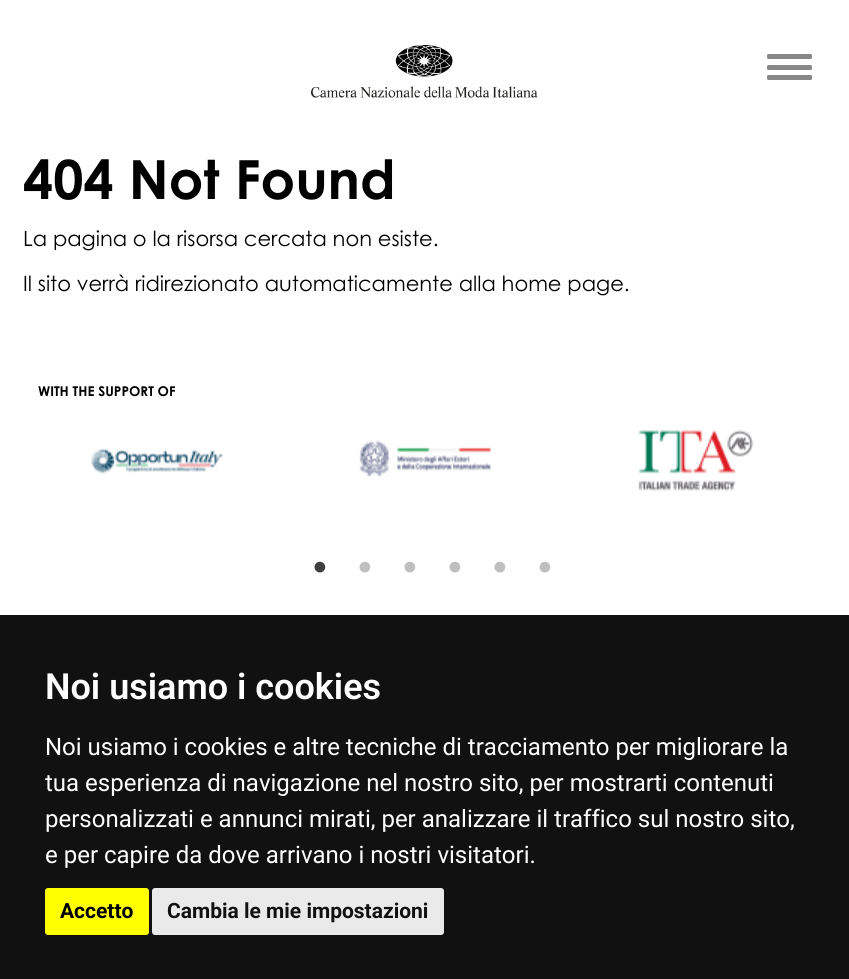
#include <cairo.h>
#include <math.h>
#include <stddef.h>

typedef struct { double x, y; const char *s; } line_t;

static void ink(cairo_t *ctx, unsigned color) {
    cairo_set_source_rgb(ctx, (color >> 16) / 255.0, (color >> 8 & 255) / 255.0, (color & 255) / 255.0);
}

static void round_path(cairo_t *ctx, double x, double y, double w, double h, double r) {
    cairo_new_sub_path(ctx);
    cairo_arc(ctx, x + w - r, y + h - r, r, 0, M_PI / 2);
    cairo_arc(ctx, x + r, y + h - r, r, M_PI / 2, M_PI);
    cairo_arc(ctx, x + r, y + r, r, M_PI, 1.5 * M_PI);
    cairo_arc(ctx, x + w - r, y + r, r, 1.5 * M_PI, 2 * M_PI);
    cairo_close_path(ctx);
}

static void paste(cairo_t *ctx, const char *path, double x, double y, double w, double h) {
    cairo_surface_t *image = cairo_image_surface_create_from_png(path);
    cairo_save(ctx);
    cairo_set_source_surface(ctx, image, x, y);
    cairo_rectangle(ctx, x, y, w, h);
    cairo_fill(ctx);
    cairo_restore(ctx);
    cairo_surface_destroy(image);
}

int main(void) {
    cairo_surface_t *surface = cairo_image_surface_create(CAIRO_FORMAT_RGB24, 849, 979);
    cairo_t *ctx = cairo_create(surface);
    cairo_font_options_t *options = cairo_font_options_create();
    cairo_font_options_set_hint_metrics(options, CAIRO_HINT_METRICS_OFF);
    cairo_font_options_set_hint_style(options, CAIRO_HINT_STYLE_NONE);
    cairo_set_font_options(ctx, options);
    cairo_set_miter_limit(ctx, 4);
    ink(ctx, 0xFFFFFF);
    cairo_paint(ctx);
    paste(ctx, "media/1.png", 311, 45, 227, 53);
    ink(ctx, 0x888888);
    round_path(ctx, 767, 54, 45, 5, 1.5);
    cairo_fill(ctx);
    round_path(ctx, 767, 65, 45, 5, 1.5);
    cairo_fill(ctx);
    round_path(ctx, 767, 75, 45, 5, 1.5);
    cairo_fill(ctx);
    cairo_select_font_face(ctx, "Century Gothic", CAIRO_FONT_SLANT_NORMAL, CAIRO_FONT_WEIGHT_BOLD);
    cairo_set_font_size(ctx, 54);
    ink(ctx, 0x000000);
    cairo_move_to(ctx, 23, 199);
    cairo_show_text(ctx, "404 Not Found");
    cairo_select_font_face(ctx, "Century Gothic", CAIRO_FONT_SLANT_NORMAL, CAIRO_FONT_WEIGHT_NORMAL);
    cairo_set_font_size(ctx, 21);
    cairo_move_to(ctx, 23, 246);
    cairo_show_text(ctx, "La pagina o la risorsa cercata non esiste.");
    cairo_move_to(ctx, 23, 291);
    cairo_show_text(ctx, "Il sito verrà ridirezionato automaticamente alla home page.");
    cairo_select_font_face(ctx, "Century Gothic", CAIRO_FONT_SLANT_NORMAL, CAIRO_FONT_WEIGHT_BOLD);
    cairo_set_font_size(ctx, 13.5);
    cairo_move_to(ctx, 38, 396);
    cairo_show_text(ctx, "WITH THE SUPPORT OF");
    paste(ctx, "media/2.png", 91, 448, 132, 26);
    paste(ctx, "media/3.png", 359, 440, 132, 37);
    paste(ctx, "media/4.png", 638, 429, 116, 63);
    cairo_select_font_face(ctx, "Liberation Serif", CAIRO_FONT_SLANT_NORMAL, CAIRO_FONT_WEIGHT_NORMAL);
    cairo_set_font_size(ctx, 45);
    ink(ctx, 0x404040);
    cairo_move_to(ctx, 312, 582);
    cairo_show_text(ctx, "•");
    ink(ctx, 0xBFBFBF);
    {
        static const line_t items[] = {
            {357, 582, "•"},
            {402, 582, "•"},
            {447, 582, "•"},
            {492, 582, "•"},
            {537, 582, "•"},
        };
        for (size_t i = 0; i < sizeof items / sizeof *items; i++) {
            cairo_move_to(ctx, items[i].x, items[i].y);
            cairo_show_text(ctx, items[i].s);
        }
    }
    ink(ctx, 0x111111);
    cairo_rectangle(ctx, 0, 615, 849, 364);
    cairo_fill(ctx);
    cairo_select_font_face(ctx, "Roboto SemiBold", CAIRO_FONT_SLANT_NORMAL, CAIRO_FONT_WEIGHT_NORMAL);
    cairo_set_font_size(ctx, 36);
    ink(ctx, 0xFFFFFF);
    cairo_move_to(ctx, 45, 699);
    cairo_show_text(ctx, "Noi usiamo i cookies");
    cairo_select_font_face(ctx, "Roboto", CAIRO_FONT_SLANT_NORMAL, CAIRO_FONT_WEIGHT_NORMAL);
    cairo_set_font_size(ctx, 24);
    {
        static const line_t items[] = {
            {45, 755, "Noi usiamo i cookies e altre tecniche di tracciamento per migliorare la"},
            {45, 791, "tua esperienza di navigazione nel nostro sito, per mostrarti contenuti"},
            {45, 827, "personalizzati e annunci mirati, per analizzare il traffico sul nostro sito,"},
            {45, 863, "e per capire da dove arrivano i nostri visitatori."},
        };
        for (size_t i = 0; i < sizeof items / sizeof *items; i++) {
            cairo_move_to(ctx, items[i].x, items[i].y);
            cairo_show_text(ctx, items[i].s);
        }
    }
    ink(ctx, 0xFFFF00);
    round_path(ctx, 45, 888, 104, 47, 3);
    cairo_fill(ctx);
    cairo_select_font_face(ctx, "Roboto", CAIRO_FONT_SLANT_NORMAL, CAIRO_FONT_WEIGHT_BOLD);
    cairo_set_font_size(ctx, 21);
    ink(ctx, 0x000000);
    cairo_move_to(ctx, 60, 918);
    cairo_show_text(ctx, "Accetto");
    ink(ctx, 0xEAEAEA);
    round_path(ctx, 152, 888, 292, 47, 3);
    cairo_fill(ctx);
    ink(ctx, 0x111111);
    cairo_move_to(ctx, 167, 918);
    cairo_show_text(ctx, "Cambia le mie impostazioni");
    cairo_surface_write_to_png(surface, "image.png");
    cairo_font_options_destroy(options);
    cairo_destroy(ctx);
    cairo_surface_destroy(surface);
    return 0;
}
